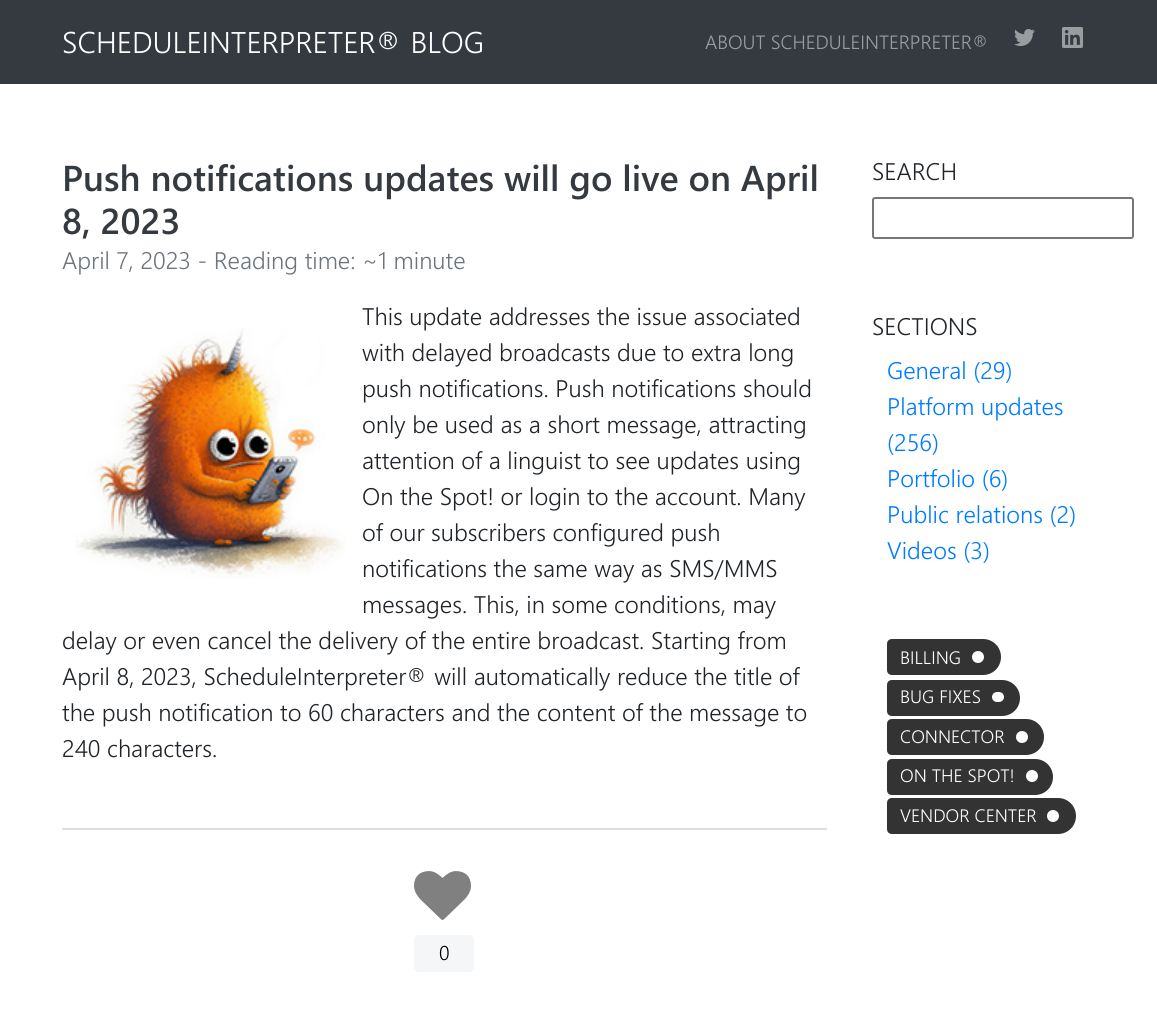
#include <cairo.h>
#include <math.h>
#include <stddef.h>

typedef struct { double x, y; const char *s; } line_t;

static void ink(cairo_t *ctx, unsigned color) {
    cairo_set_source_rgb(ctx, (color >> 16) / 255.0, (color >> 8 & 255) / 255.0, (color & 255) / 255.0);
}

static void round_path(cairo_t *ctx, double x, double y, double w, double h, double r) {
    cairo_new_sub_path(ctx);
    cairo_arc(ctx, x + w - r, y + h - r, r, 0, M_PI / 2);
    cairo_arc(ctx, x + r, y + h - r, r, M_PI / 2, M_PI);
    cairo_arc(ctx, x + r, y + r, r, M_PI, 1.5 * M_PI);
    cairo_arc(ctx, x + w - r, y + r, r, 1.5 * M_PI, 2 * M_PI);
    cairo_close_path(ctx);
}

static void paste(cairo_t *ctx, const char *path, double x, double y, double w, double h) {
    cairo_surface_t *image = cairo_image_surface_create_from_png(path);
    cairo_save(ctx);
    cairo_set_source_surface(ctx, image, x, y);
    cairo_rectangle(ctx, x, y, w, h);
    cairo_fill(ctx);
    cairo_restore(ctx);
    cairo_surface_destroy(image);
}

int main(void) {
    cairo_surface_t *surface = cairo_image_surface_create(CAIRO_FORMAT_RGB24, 1157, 1010);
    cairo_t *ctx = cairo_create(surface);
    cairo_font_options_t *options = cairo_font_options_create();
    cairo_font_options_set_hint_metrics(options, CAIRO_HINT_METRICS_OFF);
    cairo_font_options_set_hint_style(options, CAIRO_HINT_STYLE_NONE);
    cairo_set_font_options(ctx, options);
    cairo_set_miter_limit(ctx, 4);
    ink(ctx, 0xFFFFFF);
    cairo_paint(ctx);
    ink(ctx, 0x343A40);
    cairo_rectangle(ctx, 0, 0, 1157, 84);
    cairo_fill(ctx);
    cairo_select_font_face(ctx, "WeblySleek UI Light", CAIRO_FONT_SLANT_NORMAL, CAIRO_FONT_WEIGHT_NORMAL);
    cairo_set_font_size(ctx, 30);
    ink(ctx, 0xFFFFFF);
    cairo_move_to(ctx, 62, 53);
    cairo_show_text(ctx, "SCHEDULEINTERPRETER® BLOG");
    cairo_set_font_size(ctx, 19.25);
    ink(ctx, 0x9A9DA0);
    cairo_move_to(ctx, 705, 49);
    cairo_show_text(ctx, "ABOUT SCHEDULEINTERPRETER®");
    paste(ctx, "media/1.png", 1014, 29, 21, 17);
    paste(ctx, "media/2.png", 1062, 27, 21, 21);
    cairo_select_font_face(ctx, "WeblySleek UI SemiBold", CAIRO_FONT_SLANT_NORMAL, CAIRO_FONT_WEIGHT_NORMAL);
    cairo_set_font_size(ctx, 36);
    ink(ctx, 0x343A40);
    cairo_move_to(ctx, 62, 191);
    cairo_show_text(ctx, "Push notifications updates will go live on April");
    cairo_move_to(ctx, 62, 234);
    cairo_show_text(ctx, "8, 2023");
    cairo_select_font_face(ctx, "WeblySleek UI Light", CAIRO_FONT_SLANT_NORMAL, CAIRO_FONT_WEIGHT_NORMAL);
    cairo_set_font_size(ctx, 24);
    ink(ctx, 0x6C757D);
    cairo_move_to(ctx, 62, 269);
    cairo_show_text(ctx, "April 7, 2023 - Reading time: ~1 minute");
    ink(ctx, 0x212529);
    cairo_move_to(ctx, 362, 325);
    cairo_show_text(ctx, "This update addresses the issue associated");
    paste(ctx, "media/3.png", 75, 328, 271, 251);
    {
        static const line_t items[] = {
            {362, 361, "with delayed broadcasts due to extra long"},
            {362, 397, "push notifications. Push notifications should"},
            {362, 433, "only be used as a short message, attracting"},
            {362, 469, "attention of a linguist to see updates using"},
            {362, 505, "On the Spot! or login to the account. Many"},
            {362, 541, "of our subscribers configured push"},
            {362, 577, "notifications the same way as SMS/MMS"},
            {362, 613, "messages. This, in some conditions, may"},
            {62, 649, "delay or even cancel the delivery of the entire broadcast. Starting from"},
            {62, 685, "April 8, 2023, ScheduleInterpreter® will automatically reduce the title of"},
            {62, 721, "the push notification to 60 characters and the content of the message to"},
            {62, 757, "240 characters."},
        };
        for (size_t i = 0; i < sizeof items / sizeof *items; i++) {
            cairo_move_to(ctx, items[i].x, items[i].y);
            cairo_show_text(ctx, items[i].s);
        }
    }
    ink(ctx, 0xDDDDDD);
    cairo_rectangle(ctx, 62, 828, 765, 2);
    cairo_fill(ctx);
    paste(ctx, "media/4.png", 414, 871, 57, 49);
    ink(ctx, 0xF4F6F8);
    round_path(ctx, 414, 935, 60, 37, 5);
    cairo_fill(ctx);
    cairo_set_font_size(ctx, 20);
    ink(ctx, 0x000000);
    cairo_move_to(ctx, 439, 960);
    cairo_show_text(ctx, "0");
    cairo_set_font_size(ctx, 24);
    ink(ctx, 0x212529);
    cairo_move_to(ctx, 872, 180);
    cairo_show_text(ctx, "SEARCH");
    round_path(ctx, 873, 198, 260, 40, 2);
    ink(ctx, 0x767676);
    cairo_stroke(ctx);
    ink(ctx, 0x212529);
    cairo_move_to(ctx, 872, 335);
    cairo_show_text(ctx, "SECTIONS");
    ink(ctx, 0x007BFF);
    {
        static const line_t items[] = {
            {887, 379, "General (29)"},
            {887, 415, "Platform updates"},
            {887, 451, "(256)"},
            {887, 487, "Portfolio (6)"},
            {887, 523, "Public relations (2)"},
            {887, 559, "Videos (3)"},
        };
        for (size_t i = 0; i < sizeof items / sizeof *items; i++) {
            cairo_move_to(ctx, items[i].x, items[i].y);
            cairo_show_text(ctx, items[i].s);
        }
    }
    ink(ctx, 0x333333);
    cairo_new_path(ctx);
    cairo_move_to(ctx, 892, 639);
    cairo_line_to(ctx, 983, 639);
    cairo_curve_to(ctx, 993, 639, 1001, 647, 1001, 657);
    cairo_curve_to(ctx, 1001, 667, 993, 675, 983, 675);
    cairo_line_to(ctx, 892, 675);
    cairo_curve_to(ctx, 889, 675, 887, 673, 887, 670);
    cairo_line_to(ctx, 887, 644);
    cairo_curve_to(ctx, 887, 641, 889, 639, 892, 639);
    cairo_close_path(ctx);
    cairo_fill(ctx);
    cairo_set_font_size(ctx, 18);
    ink(ctx, 0xFFFFFF);
    cairo_move_to(ctx, 900, 664);
    cairo_show_text(ctx, "BILLING");
    cairo_new_path(ctx);
    cairo_arc(ctx, 978, 657, 6, 0, 2 * M_PI);
    cairo_fill(ctx);
    ink(ctx, 0x333333);
    cairo_new_path(ctx);
    cairo_move_to(ctx, 892, 680);
    cairo_line_to(ctx, 1002, 680);
    cairo_curve_to(ctx, 1012, 680, 1020, 688, 1020, 698);
    cairo_curve_to(ctx, 1020, 708, 1012, 716, 1002, 716);
    cairo_line_to(ctx, 892, 716);
    cairo_curve_to(ctx, 889, 716, 887, 714, 887, 711);
    cairo_line_to(ctx, 887, 685);
    cairo_curve_to(ctx, 887, 682, 889, 680, 892, 680);
    cairo_close_path(ctx);
    cairo_fill(ctx);
    ink(ctx, 0xFFFFFF);
    cairo_move_to(ctx, 900, 703);
    cairo_show_text(ctx, "BUG FIXES");
    round_path(ctx, 992, 692, 12, 10, 5);
    cairo_fill(ctx);
    ink(ctx, 0x333333);
    cairo_new_path(ctx);
    cairo_move_to(ctx, 892, 719);
    cairo_line_to(ctx, 1026, 719);
    cairo_curve_to(ctx, 1036, 719, 1044, 727, 1044, 737);
    cairo_curve_to(ctx, 1044, 747, 1036, 755, 1026, 755);
    cairo_line_to(ctx, 892, 755);
    cairo_curve_to(ctx, 889, 755, 887, 753, 887, 750);
    cairo_line_to(ctx, 887, 724);
    cairo_curve_to(ctx, 887, 721, 889, 719, 892, 719);
    cairo_close_path(ctx);
    cairo_fill(ctx);
    ink(ctx, 0xFFFFFF);
    cairo_move_to(ctx, 900, 743);
    cairo_show_text(ctx, "CONNECTOR");
    cairo_new_path(ctx);
    cairo_arc(ctx, 1022, 737, 6, 0, 2 * M_PI);
    cairo_fill(ctx);
    ink(ctx, 0x333333);
    cairo_new_path(ctx);
    cairo_move_to(ctx, 892, 759);
    cairo_line_to(ctx, 1035, 759);
    cairo_curve_to(ctx, 1045, 759, 1053, 767, 1053, 777);
    cairo_curve_to(ctx, 1053, 787, 1045, 795, 1035, 795);
    cairo_line_to(ctx, 892, 795);
    cairo_curve_to(ctx, 889, 795, 887, 793, 887, 790);
    cairo_line_to(ctx, 887, 764);
    cairo_curve_to(ctx, 887, 761, 889, 759, 892, 759);
    cairo_close_path(ctx);
    cairo_fill(ctx);
    ink(ctx, 0xFFFFFF);
    cairo_move_to(ctx, 900, 782);
    cairo_show_text(ctx, "ON THE SPOT!");
    cairo_new_path(ctx);
    cairo_arc(ctx, 1032, 776, 6, 0, 2 * M_PI);
    cairo_fill(ctx);
    ink(ctx, 0x333333);
    cairo_new_path(ctx);
    cairo_move_to(ctx, 892, 798);
    cairo_line_to(ctx, 1058, 798);
    cairo_curve_to(ctx, 1068, 798, 1076, 806, 1076, 816);
    cairo_curve_to(ctx, 1076, 826, 1068, 834, 1058, 834);
    cairo_line_to(ctx, 892, 834);
    cairo_curve_to(ctx, 889, 834, 887, 832, 887, 829);
    cairo_line_to(ctx, 887, 803);
    cairo_curve_to(ctx, 887, 800, 889, 798, 892, 798);
    cairo_close_path(ctx);
    cairo_fill(ctx);
    ink(ctx, 0xFFFFFF);
    cairo_move_to(ctx, 900, 822);
    cairo_show_text(ctx, "VENDOR CENTER");
    cairo_new_path(ctx);
    cairo_arc(ctx, 1053, 816, 6, 0, 2 * M_PI);
    cairo_fill(ctx);
    cairo_surface_write_to_png(surface, "image.png");
    cairo_font_options_destroy(options);
    cairo_destroy(ctx);
    cairo_surface_destroy(surface);
    return 0;
}
